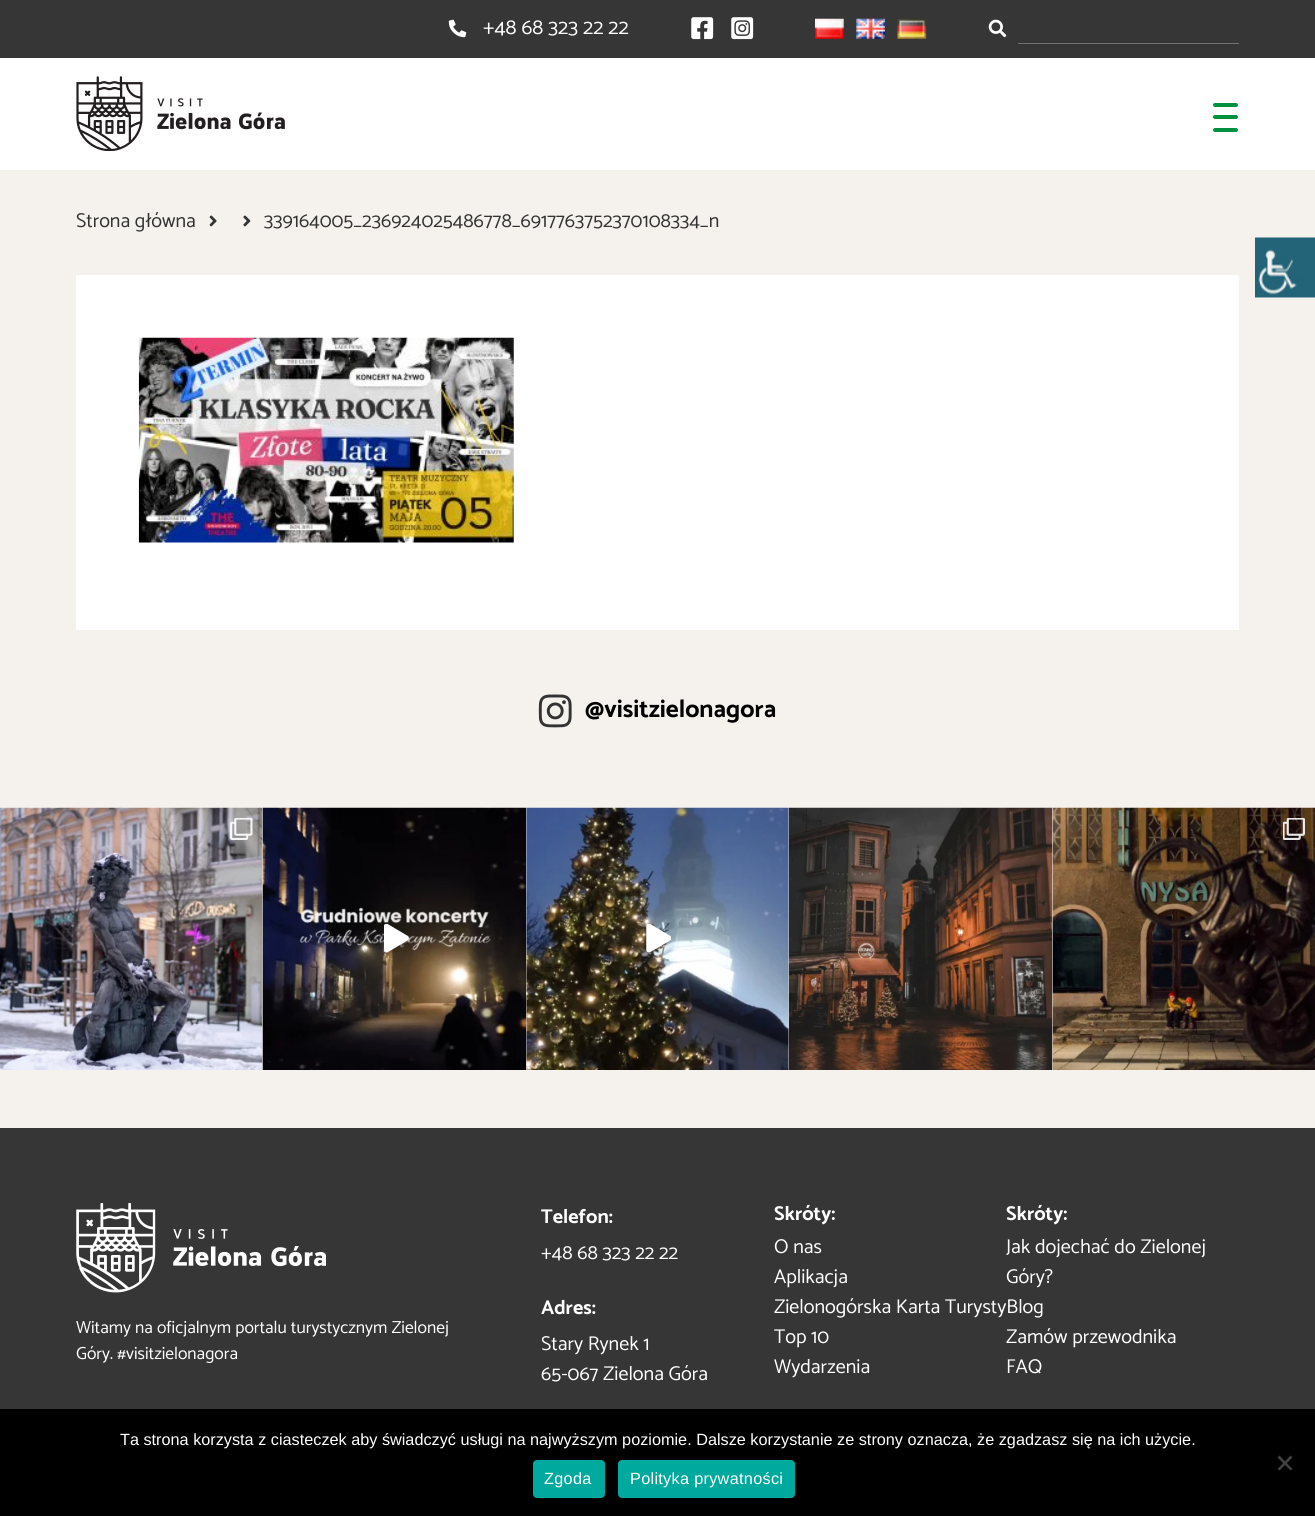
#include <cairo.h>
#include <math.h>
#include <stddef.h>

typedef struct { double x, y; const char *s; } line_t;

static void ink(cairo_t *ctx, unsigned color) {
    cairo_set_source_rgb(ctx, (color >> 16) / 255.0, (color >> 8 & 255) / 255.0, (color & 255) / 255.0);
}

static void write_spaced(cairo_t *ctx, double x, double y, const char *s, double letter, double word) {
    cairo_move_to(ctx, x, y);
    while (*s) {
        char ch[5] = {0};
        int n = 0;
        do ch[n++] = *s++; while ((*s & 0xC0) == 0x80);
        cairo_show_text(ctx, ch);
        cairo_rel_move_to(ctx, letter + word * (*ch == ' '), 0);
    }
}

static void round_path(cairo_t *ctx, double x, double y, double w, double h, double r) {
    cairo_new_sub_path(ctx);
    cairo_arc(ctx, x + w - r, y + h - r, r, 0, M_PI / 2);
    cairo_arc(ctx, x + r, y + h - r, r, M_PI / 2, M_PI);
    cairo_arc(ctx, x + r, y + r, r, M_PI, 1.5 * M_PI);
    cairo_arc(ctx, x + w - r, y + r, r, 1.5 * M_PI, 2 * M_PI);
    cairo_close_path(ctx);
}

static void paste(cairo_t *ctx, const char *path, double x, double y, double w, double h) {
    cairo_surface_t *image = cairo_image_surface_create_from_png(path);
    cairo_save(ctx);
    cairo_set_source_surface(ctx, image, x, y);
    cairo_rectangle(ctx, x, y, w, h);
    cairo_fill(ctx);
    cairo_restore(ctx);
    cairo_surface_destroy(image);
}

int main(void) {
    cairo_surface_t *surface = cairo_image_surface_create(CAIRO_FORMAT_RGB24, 1315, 1516);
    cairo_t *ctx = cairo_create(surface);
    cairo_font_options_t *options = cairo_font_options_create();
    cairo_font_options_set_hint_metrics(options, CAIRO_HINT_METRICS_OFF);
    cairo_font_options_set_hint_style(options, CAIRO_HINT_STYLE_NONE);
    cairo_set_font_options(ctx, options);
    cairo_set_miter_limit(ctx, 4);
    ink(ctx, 0xFFFFFF);
    cairo_paint(ctx);
    ink(ctx, 0x363636);
    cairo_rectangle(ctx, 0, 0, 1315, 58);
    cairo_fill(ctx);
    paste(ctx, "media/1.png", 448, 19, 19, 19);
    cairo_select_font_face(ctx, "Catamaran", CAIRO_FONT_SLANT_NORMAL, CAIRO_FONT_WEIGHT_NORMAL);
    cairo_set_font_size(ctx, 21.25);
    ink(ctx, 0xFFFFFF);
    cairo_move_to(ctx, 483, 34);
    cairo_show_text(ctx, "+48 68 323 22 22");
    paste(ctx, "media/2.png", 691, 17, 23, 23);
    paste(ctx, "media/3.png", 731, 17, 23, 23);
    paste(ctx, "media/4.png", 815, 18, 29, 21);
    paste(ctx, "media/5.png", 856, 18, 29, 21);
    paste(ctx, "media/6.png", 897, 18, 30, 21);
    paste(ctx, "media/7.png", 988, 19, 19, 19);
    ink(ctx, 0x717171);
    cairo_rectangle(ctx, 1018, 43, 221, 1);
    cairo_fill(ctx);
    paste(ctx, "media/8.png", 76, 76, 209, 75);
    ink(ctx, 0x009140);
    round_path(ctx, 1213, 103, 25, 4, 2);
    cairo_fill(ctx);
    round_path(ctx, 1213, 115, 25, 4, 2);
    cairo_fill(ctx);
    round_path(ctx, 1213, 128, 25, 4, 2);
    cairo_fill(ctx);
    ink(ctx, 0xF5F1ED);
    cairo_rectangle(ctx, 0, 170, 1315, 958);
    cairo_fill(ctx);
    cairo_set_font_size(ctx, 20);
    ink(ctx, 0x333333);
    cairo_move_to(ctx, 76, 227);
    cairo_show_text(ctx, "Strona główna");
    paste(ctx, "media/9.png", 209, 215, 8, 12);
    paste(ctx, "media/10.png", 243, 215, 8, 12);
    cairo_move_to(ctx, 264, 227);
    cairo_show_text(ctx, "339164005_236924025486778_6917763752370108334_n");
    ink(ctx, 0xFFFFFF);
    cairo_rectangle(ctx, 76, 275, 1163, 355);
    cairo_fill(ctx);
    paste(ctx, "media/11.png", 138, 337, 376, 206);
    paste(ctx, "media/12.png", 538, 694, 34, 34);
    cairo_select_font_face(ctx, "Catamaran", CAIRO_FONT_SLANT_NORMAL, CAIRO_FONT_WEIGHT_BOLD);
    cairo_set_font_size(ctx, 25);
    ink(ctx, 0x000000);
    cairo_move_to(ctx, 585, 717);
    cairo_show_text(ctx, "@visitzielonagora");
    paste(ctx, "media/13.png", 0, 807, 263, 263);
    paste(ctx, "media/14.png", 230, 818, 23, 22);
    paste(ctx, "media/15.png", 262, 807, 265, 263);
    paste(ctx, "media/16.png", 384, 924, 25, 29);
    paste(ctx, "media/17.png", 526, 807, 263, 263);
    paste(ctx, "media/18.png", 646, 924, 25, 29);
    paste(ctx, "media/19.png", 788, 807, 265, 263);
    paste(ctx, "media/20.png", 1052, 807, 263, 263);
    paste(ctx, "media/21.png", 1283, 818, 22, 22);
    ink(ctx, 0xFFFFFF);
    cairo_rectangle(ctx, 1255, 297, 60, 1);
    cairo_fill(ctx);
    paste(ctx, "media/22.png", 1255, 237, 60, 61);
    ink(ctx, 0x363636);
    cairo_rectangle(ctx, 0, 1128, 1315, 281);
    cairo_fill(ctx);
    paste(ctx, "media/23.png", 76, 1203, 250, 90);
    cairo_select_font_face(ctx, "Catamaran", CAIRO_FONT_SLANT_NORMAL, CAIRO_FONT_WEIGHT_NORMAL);
    cairo_set_font_size(ctx, 17.5);
    ink(ctx, 0xFFFFFF);
    cairo_move_to(ctx, 76, 1333);
    cairo_show_text(ctx, "Witamy na oficjalnym portalu turystycznym Zielonej");
    cairo_move_to(ctx, 76, 1359);
    cairo_show_text(ctx, "Góry. #visitzielonagora");
    cairo_select_font_face(ctx, "Catamaran", CAIRO_FONT_SLANT_NORMAL, CAIRO_FONT_WEIGHT_BOLD);
    cairo_set_font_size(ctx, 20);
    cairo_move_to(ctx, 541, 1223);
    cairo_show_text(ctx, "Telefon:");
    cairo_select_font_face(ctx, "Catamaran", CAIRO_FONT_SLANT_NORMAL, CAIRO_FONT_WEIGHT_NORMAL);
    cairo_move_to(ctx, 541, 1259);
    cairo_show_text(ctx, "+48 68 323 22 22");
    cairo_select_font_face(ctx, "Catamaran", CAIRO_FONT_SLANT_NORMAL, CAIRO_FONT_WEIGHT_BOLD);
    cairo_move_to(ctx, 541, 1314);
    cairo_show_text(ctx, "Adres:");
    cairo_select_font_face(ctx, "Catamaran", CAIRO_FONT_SLANT_NORMAL, CAIRO_FONT_WEIGHT_NORMAL);
    cairo_move_to(ctx, 541, 1350);
    cairo_show_text(ctx, "Stary Rynek 1");
    cairo_move_to(ctx, 541, 1380);
    cairo_show_text(ctx, "65-067 Zielona Góra");
    cairo_select_font_face(ctx, "Catamaran", CAIRO_FONT_SLANT_NORMAL, CAIRO_FONT_WEIGHT_BOLD);
    cairo_move_to(ctx, 774, 1220);
    cairo_show_text(ctx, "Skróty:");
    cairo_select_font_face(ctx, "Catamaran", CAIRO_FONT_SLANT_NORMAL, CAIRO_FONT_WEIGHT_NORMAL);
    {
        static const line_t items[] = {
            {774, 1253, "O nas"},
            {774, 1283, "Aplikacja"},
            {774, 1313, "Zielonogórska Karta TurystyBlog"},
            {774, 1343, "Top 10"},
            {774, 1373, "Wydarzenia"},
        };
        for (size_t i = 0; i < sizeof items / sizeof *items; i++) {
            cairo_move_to(ctx, items[i].x, items[i].y);
            cairo_show_text(ctx, items[i].s);
        }
    }
    cairo_select_font_face(ctx, "Catamaran", CAIRO_FONT_SLANT_NORMAL, CAIRO_FONT_WEIGHT_BOLD);
    cairo_move_to(ctx, 1006, 1220);
    cairo_show_text(ctx, "Skróty:");
    cairo_select_font_face(ctx, "Catamaran", CAIRO_FONT_SLANT_NORMAL, CAIRO_FONT_WEIGHT_NORMAL);
    {
        static const line_t items[] = {
            {1006, 1253, "Jak dojechać do Zielonej"},
            {1006, 1283, "Góry?"},
            {1006, 1343, "Zamów przewodnika"},
            {1006, 1373, "FAQ"},
        };
        for (size_t i = 0; i < sizeof items / sizeof *items; i++) {
            cairo_move_to(ctx, items[i].x, items[i].y);
            cairo_show_text(ctx, items[i].s);
        }
    }
    ink(ctx, 0x000000);
    cairo_rectangle(ctx, 0, 1409, 1315, 107);
    cairo_fill(ctx);
    cairo_select_font_face(ctx, "Liberation Sans", CAIRO_FONT_SLANT_NORMAL, CAIRO_FONT_WEIGHT_NORMAL);
    cairo_set_font_size(ctx, 16.25);
    ink(ctx, 0xFFFFFF);
    cairo_move_to(ctx, 120, 1445);
    cairo_show_text(ctx, "Ta strona korzysta z ciasteczek aby świadczyć usługi na najwyższym poziomie. Dalsze korzystanie ze strony oznacza, że zgadzasz się na ich użycie.");
    ink(ctx, 0x404040);
    cairo_new_path(ctx);
    cairo_move_to(ctx, 1290.5, 1455.5);
    cairo_line_to(ctx, 1292.5, 1457.5);
    cairo_line_to(ctx, 1279.5, 1470.5);
    cairo_line_to(ctx, 1277.5, 1469);
    cairo_close_path(ctx);
    cairo_fill(ctx);
    cairo_new_path(ctx);
    cairo_move_to(ctx, 1277.5, 1457.5);
    cairo_line_to(ctx, 1279.5, 1455.5);
    cairo_line_to(ctx, 1292.5, 1469);
    cairo_line_to(ctx, 1290.5, 1470.5);
    cairo_close_path(ctx);
    cairo_fill(ctx);
    ink(ctx, 0x00A99D);
    round_path(ctx, 533, 1460, 72, 38, 4);
    cairo_fill(ctx);
    ink(ctx, 0xFFFFFF);
    write_spaced(ctx, 544, 1484, "Zgoda", 0.3, 0);
    ink(ctx, 0x00A99D);
    round_path(ctx, 618, 1460, 177, 38, 4);
    cairo_fill(ctx);
    ink(ctx, 0xFFFFFF);
    write_spaced(ctx, 630, 1484, "Polityka prywatności", 0.3, 0);
    cairo_surface_write_to_png(surface, "image.png");
    cairo_font_options_destroy(options);
    cairo_destroy(ctx);
    cairo_surface_destroy(surface);
    return 0;
}
